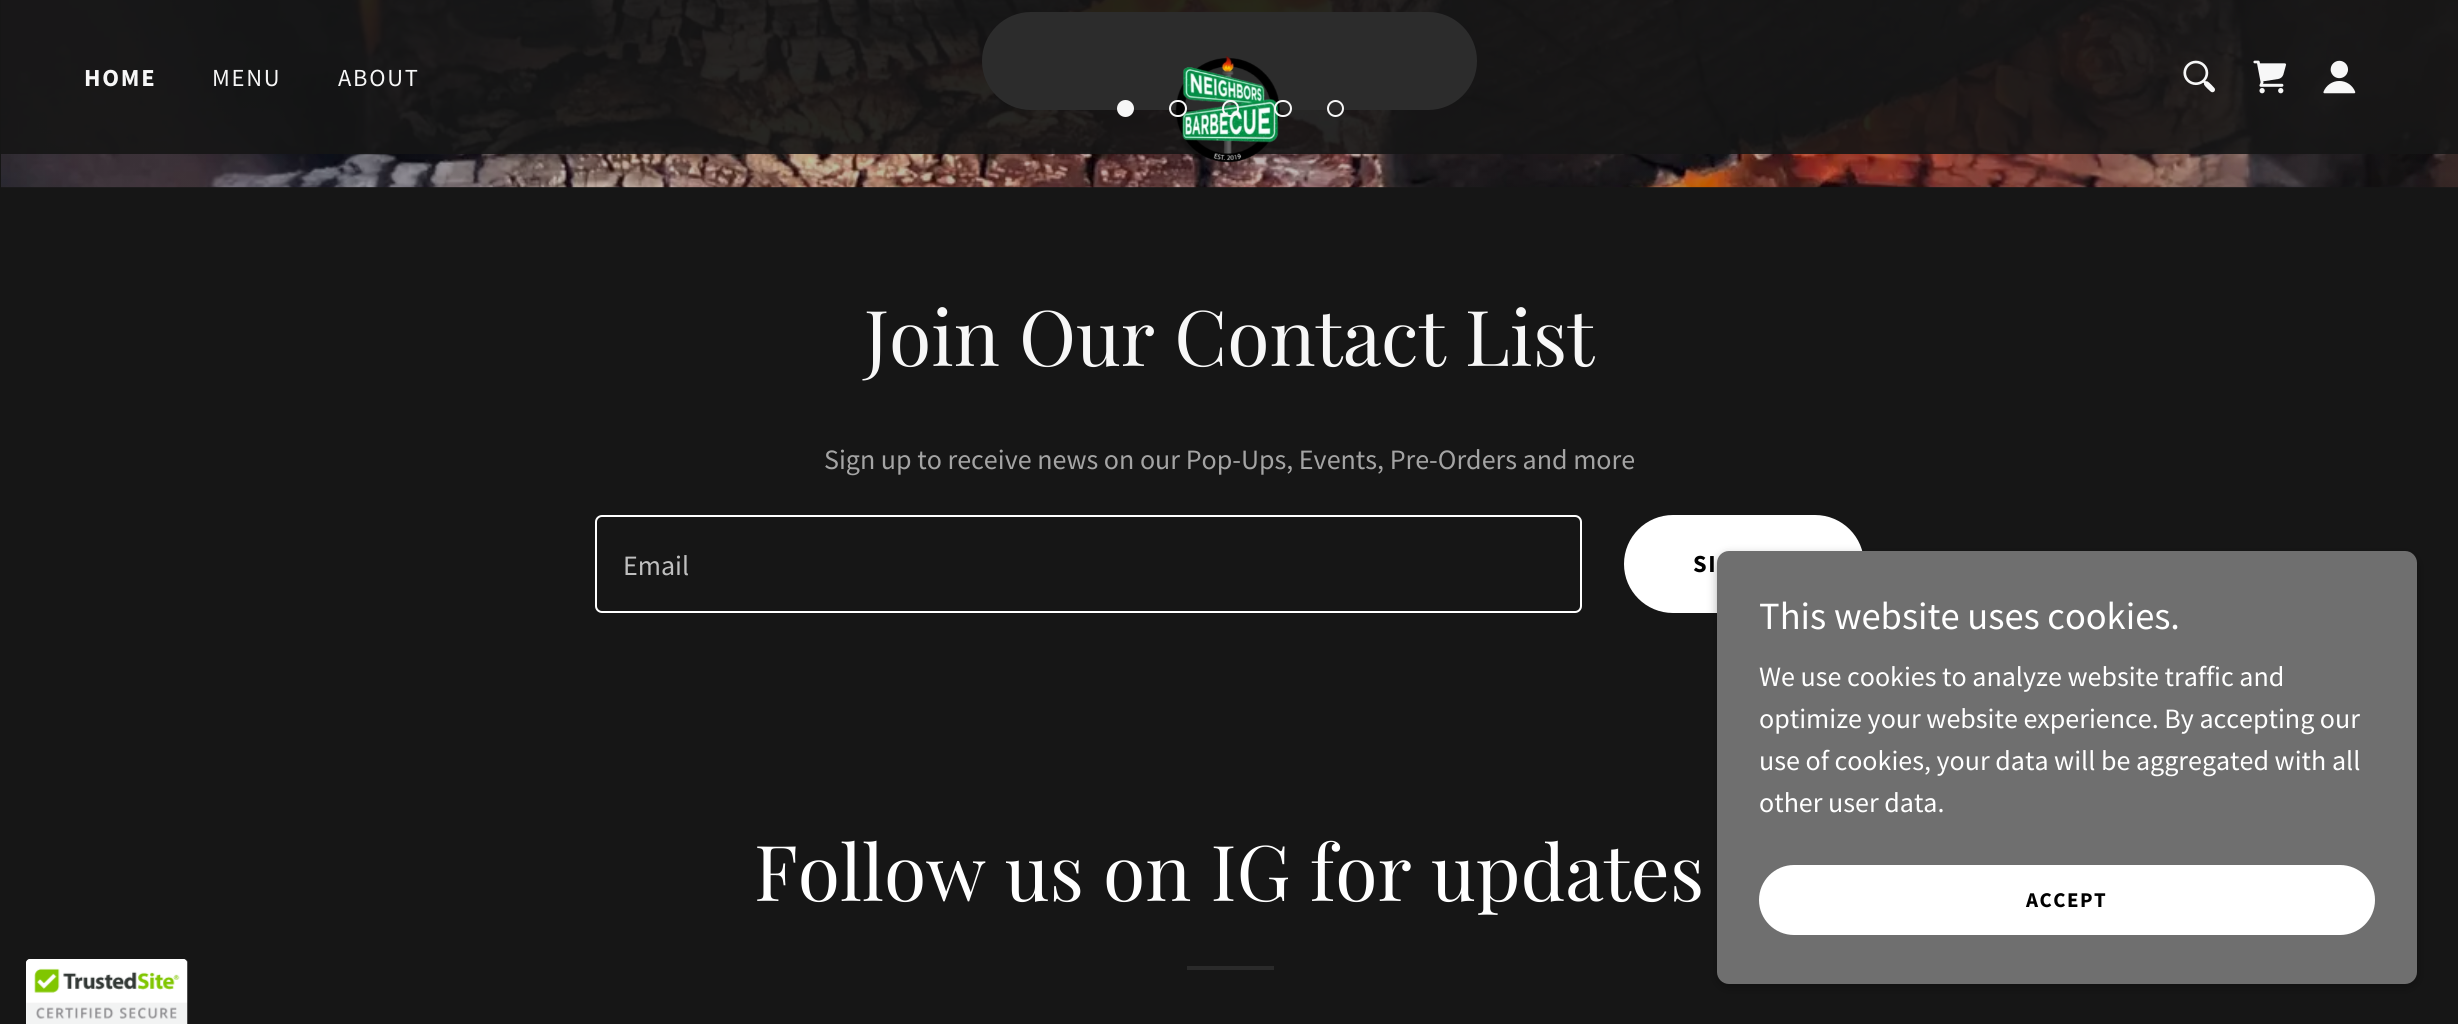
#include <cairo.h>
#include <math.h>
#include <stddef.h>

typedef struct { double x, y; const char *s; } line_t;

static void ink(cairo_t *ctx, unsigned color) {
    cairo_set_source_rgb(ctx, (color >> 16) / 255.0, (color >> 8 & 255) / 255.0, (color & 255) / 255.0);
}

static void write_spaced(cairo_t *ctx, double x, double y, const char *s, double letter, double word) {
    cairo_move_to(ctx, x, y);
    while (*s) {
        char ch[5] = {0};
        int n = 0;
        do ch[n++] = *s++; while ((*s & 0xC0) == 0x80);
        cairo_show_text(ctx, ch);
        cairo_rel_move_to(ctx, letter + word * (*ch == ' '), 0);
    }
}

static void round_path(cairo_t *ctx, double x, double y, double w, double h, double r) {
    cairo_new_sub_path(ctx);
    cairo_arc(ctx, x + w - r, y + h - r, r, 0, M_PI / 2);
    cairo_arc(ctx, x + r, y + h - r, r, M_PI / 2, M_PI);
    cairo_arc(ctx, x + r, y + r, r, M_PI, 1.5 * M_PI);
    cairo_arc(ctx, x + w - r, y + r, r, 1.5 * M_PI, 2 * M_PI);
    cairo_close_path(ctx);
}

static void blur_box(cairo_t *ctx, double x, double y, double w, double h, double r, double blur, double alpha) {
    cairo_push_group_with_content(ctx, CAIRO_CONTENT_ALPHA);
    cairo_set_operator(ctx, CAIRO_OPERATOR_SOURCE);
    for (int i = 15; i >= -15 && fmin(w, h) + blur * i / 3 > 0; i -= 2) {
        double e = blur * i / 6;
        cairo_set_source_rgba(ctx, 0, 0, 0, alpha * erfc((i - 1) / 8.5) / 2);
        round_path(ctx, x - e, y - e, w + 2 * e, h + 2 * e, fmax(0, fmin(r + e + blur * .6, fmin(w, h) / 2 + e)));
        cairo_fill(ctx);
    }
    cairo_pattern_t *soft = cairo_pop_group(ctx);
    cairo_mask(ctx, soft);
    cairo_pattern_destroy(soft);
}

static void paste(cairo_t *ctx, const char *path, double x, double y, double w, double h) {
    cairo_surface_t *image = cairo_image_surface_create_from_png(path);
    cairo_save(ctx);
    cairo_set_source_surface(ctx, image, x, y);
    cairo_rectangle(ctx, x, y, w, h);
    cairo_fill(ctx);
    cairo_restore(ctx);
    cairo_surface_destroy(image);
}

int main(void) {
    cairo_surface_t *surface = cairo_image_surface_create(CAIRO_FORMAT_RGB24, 2458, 1024);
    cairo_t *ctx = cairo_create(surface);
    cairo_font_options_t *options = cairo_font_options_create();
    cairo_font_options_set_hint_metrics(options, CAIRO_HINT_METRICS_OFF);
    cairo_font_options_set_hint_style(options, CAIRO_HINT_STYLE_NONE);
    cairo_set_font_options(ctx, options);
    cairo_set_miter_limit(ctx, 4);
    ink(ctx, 0x161616);
    cairo_paint(ctx);
    paste(ctx, "media/1.png", 1, 0, 2457, 188);
    ink(ctx, 0xFFFFFF);
    round_path(ctx, 982, 12, 495, 98, 49);
    cairo_fill(ctx);
    cairo_set_source_rgba(ctx, 0.086, 0.086, 0.086, 0.9);
    cairo_rectangle(ctx, 1, 0, 2457, 154);
    cairo_fill(ctx);
    ink(ctx, 0xF7F7F7);
    cairo_arc(ctx, 1125.5, 108.5, 7.5, 0, 2 * M_PI);
    cairo_fill_preserve(ctx);
    cairo_stroke(ctx);
    paste(ctx, "media/2.png", 1175, 56, 105, 107);
    round_path(ctx, 1170, 101, 16, 15, 7.5);
    cairo_stroke(ctx);
    cairo_arc(ctx, 1230.5, 108.5, 7.5, 0, 2 * M_PI);
    cairo_stroke(ctx);
    round_path(ctx, 1275, 101, 16, 15, 7.5);
    cairo_stroke(ctx);
    cairo_arc(ctx, 1335.5, 108.5, 7.5, 0, 2 * M_PI);
    cairo_stroke(ctx);
    cairo_select_font_face(ctx, "Source Sans Pro", CAIRO_FONT_SLANT_NORMAL, CAIRO_FONT_WEIGHT_BOLD);
    cairo_set_font_size(ctx, 24.5);
    write_spaced(ctx, 84, 86, "HOME", 1.75, 0);
    cairo_select_font_face(ctx, "Source Sans Pro", CAIRO_FONT_SLANT_NORMAL, CAIRO_FONT_WEIGHT_NORMAL);
    write_spaced(ctx, 212, 86, "MENU", 1.75, 0);
    write_spaced(ctx, 338, 86, "ABOUT", 1.75, 0);
    paste(ctx, "media/3.png", 2183, 60, 32, 33);
    paste(ctx, "media/4.png", 2253, 60, 34, 34);
    paste(ctx, "media/5.png", 2323, 60, 33, 34);
    cairo_select_font_face(ctx, "Playfair Display", CAIRO_FONT_SLANT_NORMAL, CAIRO_FONT_WEIGHT_NORMAL);
    cairo_set_font_size(ctx, 77);
    cairo_move_to(ctx, 864, 366);
    cairo_show_text(ctx, "Join Our Contact List");
    cairo_select_font_face(ctx, "Source Sans Pro", CAIRO_FONT_SLANT_NORMAL, CAIRO_FONT_WEIGHT_NORMAL);
    cairo_set_font_size(ctx, 28);
    ink(ctx, 0xA4A4A4);
    cairo_move_to(ctx, 824, 469);
    cairo_show_text(ctx, "Sign up to receive news on our Pop-Ups, Events, Pre-Orders and more");
    round_path(ctx, 596, 516, 985, 96, 6);
    ink(ctx, 0xFFFFFF);
    cairo_stroke(ctx);
    ink(ctx, 0xBFBFBF);
    cairo_move_to(ctx, 623, 575);
    cairo_show_text(ctx, "Email");
    ink(ctx, 0xFFFFFF);
    round_path(ctx, 1624, 515, 240, 98, 49);
    cairo_fill(ctx);
    cairo_select_font_face(ctx, "Source Sans Pro", CAIRO_FONT_SLANT_NORMAL, CAIRO_FONT_WEIGHT_BOLD);
    cairo_set_font_size(ctx, 24.5);
    ink(ctx, 0x000000);
    write_spaced(ctx, 1693, 572, "SI", 1.75, 0);
    cairo_select_font_face(ctx, "Playfair Display", CAIRO_FONT_SLANT_NORMAL, CAIRO_FONT_WEIGHT_NORMAL);
    cairo_set_font_size(ctx, 77);
    ink(ctx, 0xFFFFFF);
    cairo_move_to(ctx, 754, 901);
    cairo_show_text(ctx, "Follow us on IG for updates");
    ink(ctx, 0x2A2A2A);
    cairo_rectangle(ctx, 1187, 966, 87, 4);
    cairo_fill(ctx);
    ink(ctx, 0x000000);
    blur_box(ctx, 1717, 555, 700, 432, 12, 5, 0.3);
    ink(ctx, 0x6F6F6F);
    round_path(ctx, 1717, 551, 700, 433, 12);
    cairo_fill(ctx);
    cairo_select_font_face(ctx, "Source Sans Pro", CAIRO_FONT_SLANT_NORMAL, CAIRO_FONT_WEIGHT_NORMAL);
    cairo_set_font_size(ctx, 38.5);
    ink(ctx, 0xFFFFFF);
    cairo_move_to(ctx, 1759, 629);
    cairo_show_text(ctx, "This website uses cookies.");
    cairo_set_font_size(ctx, 28);
    {
        static const line_t items[] = {
            {1759, 686, "We use cookies to analyze website traffic and"},
            {1759, 728, "optimize your website experience. By accepting our"},
            {1759, 770, "use of cookies, your data will be aggregated with all"},
            {1759, 812, "other user data."},
        };
        for (size_t i = 0; i < sizeof items / sizeof *items; i++) {
            cairo_move_to(ctx, items[i].x, items[i].y);
            cairo_show_text(ctx, items[i].s);
        }
    }
    round_path(ctx, 1759, 865, 616, 70, 35);
    cairo_fill(ctx);
    cairo_select_font_face(ctx, "Source Sans Pro", CAIRO_FONT_SLANT_NORMAL, CAIRO_FONT_WEIGHT_BOLD);
    cairo_set_font_size(ctx, 21);
    ink(ctx, 0x000000);
    write_spaced(ctx, 2026, 907, "ACCEPT", 1.5, 0);
    ink(ctx, 0xFFFFFF);
    cairo_new_path(ctx);
    cairo_move_to(ctx, 30, 959);
    cairo_line_to(ctx, 183, 959);
    cairo_curve_to(ctx, 185, 959, 187, 961, 187, 963);
    cairo_line_to(ctx, 187, 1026);
    cairo_line_to(ctx, 26, 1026);
    cairo_line_to(ctx, 26, 963);
    cairo_curve_to(ctx, 26, 961, 28, 959, 30, 959);
    cairo_close_path(ctx);
    cairo_fill(ctx);
    paste(ctx, "media/6.png", 26, 959, 162, 65);
    cairo_surface_write_to_png(surface, "image.png");
    cairo_font_options_destroy(options);
    cairo_destroy(ctx);
    cairo_surface_destroy(surface);
    return 0;
}
